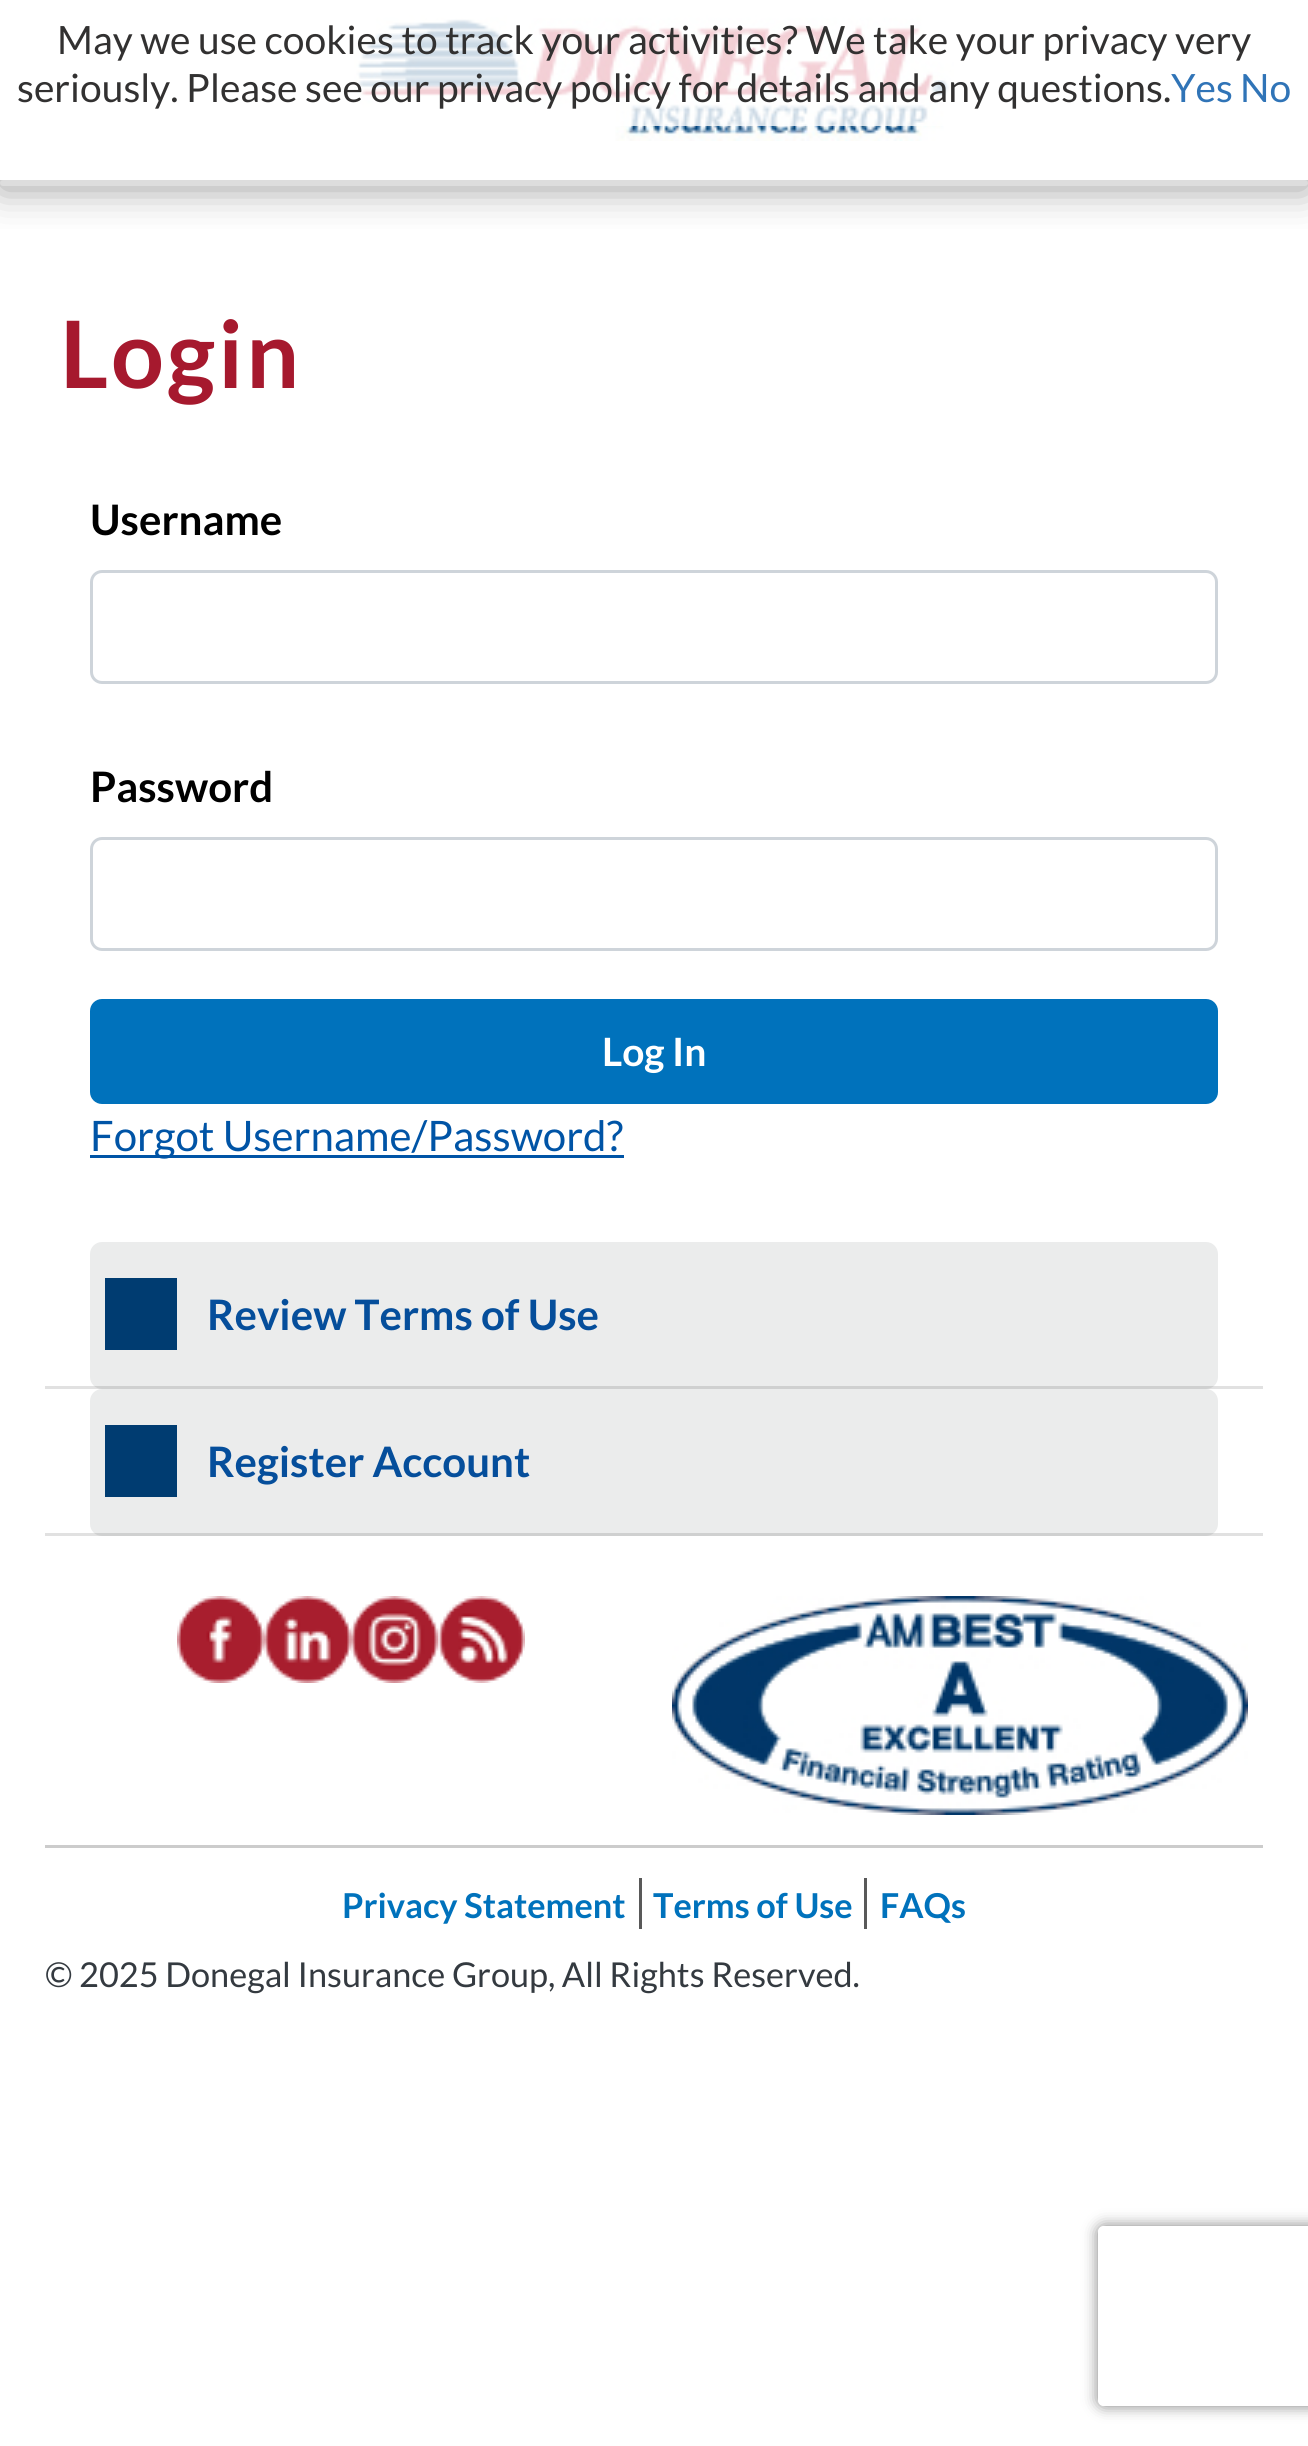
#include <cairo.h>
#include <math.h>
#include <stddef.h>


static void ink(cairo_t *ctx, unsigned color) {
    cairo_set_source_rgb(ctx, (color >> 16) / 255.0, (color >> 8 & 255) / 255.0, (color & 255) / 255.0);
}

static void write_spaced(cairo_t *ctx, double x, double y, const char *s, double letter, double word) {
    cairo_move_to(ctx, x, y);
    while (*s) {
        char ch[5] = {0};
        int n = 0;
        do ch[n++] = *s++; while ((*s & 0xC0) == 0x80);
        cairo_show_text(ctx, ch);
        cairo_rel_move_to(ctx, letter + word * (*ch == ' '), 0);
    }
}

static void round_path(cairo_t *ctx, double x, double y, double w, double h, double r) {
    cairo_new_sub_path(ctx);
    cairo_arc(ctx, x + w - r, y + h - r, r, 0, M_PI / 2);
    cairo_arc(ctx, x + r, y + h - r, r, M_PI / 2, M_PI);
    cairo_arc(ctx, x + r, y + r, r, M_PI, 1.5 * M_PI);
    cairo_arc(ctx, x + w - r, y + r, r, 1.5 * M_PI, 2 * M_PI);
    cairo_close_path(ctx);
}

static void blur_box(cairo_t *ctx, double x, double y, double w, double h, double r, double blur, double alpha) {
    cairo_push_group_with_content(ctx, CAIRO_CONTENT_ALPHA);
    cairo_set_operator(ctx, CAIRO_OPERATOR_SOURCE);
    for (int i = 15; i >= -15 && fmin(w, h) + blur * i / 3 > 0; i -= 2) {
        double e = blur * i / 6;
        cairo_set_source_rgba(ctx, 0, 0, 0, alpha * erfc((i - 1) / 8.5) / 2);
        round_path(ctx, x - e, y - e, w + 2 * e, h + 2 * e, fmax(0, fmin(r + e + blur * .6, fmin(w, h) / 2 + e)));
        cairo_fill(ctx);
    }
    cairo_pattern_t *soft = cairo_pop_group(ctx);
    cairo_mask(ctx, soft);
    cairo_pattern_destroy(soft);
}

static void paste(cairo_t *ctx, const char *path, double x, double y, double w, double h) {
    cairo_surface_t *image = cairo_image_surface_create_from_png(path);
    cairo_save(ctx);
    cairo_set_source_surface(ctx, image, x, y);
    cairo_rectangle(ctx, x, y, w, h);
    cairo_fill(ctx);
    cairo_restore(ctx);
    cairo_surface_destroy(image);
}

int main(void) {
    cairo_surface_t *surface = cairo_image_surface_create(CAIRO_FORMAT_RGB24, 1308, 2446);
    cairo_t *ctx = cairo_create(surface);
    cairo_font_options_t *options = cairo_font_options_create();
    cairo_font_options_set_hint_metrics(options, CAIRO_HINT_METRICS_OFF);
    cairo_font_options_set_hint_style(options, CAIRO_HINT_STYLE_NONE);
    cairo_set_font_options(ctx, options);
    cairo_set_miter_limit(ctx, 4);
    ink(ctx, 0xFFFFFF);
    cairo_paint(ctx);
    cairo_save(ctx);
    cairo_rectangle(ctx, 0, 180, 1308, 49);
    cairo_clip(ctx);
    ink(ctx, 0x9E9E9E);
    blur_box(ctx, 0, 9, 1308, 180, 0, 19.5, 1);
    cairo_restore(ctx);
    paste(ctx, "media/1.png", 354, 15, 600, 126);
    cairo_set_source_rgba(ctx, 1, 1, 1, 0.8);
    cairo_rectangle(ctx, 354, 15, 600, 111);
    cairo_fill(ctx);
    cairo_select_font_face(ctx, "Lato", CAIRO_FONT_SLANT_NORMAL, CAIRO_FONT_WEIGHT_NORMAL);
    cairo_set_font_size(ctx, 39);
    ink(ctx, 0x323131);
    cairo_move_to(ctx, 57, 54);
    cairo_show_text(ctx, "May we use cookies to track your activities? We take your privacy very");
    cairo_move_to(ctx, 17, 102);
    cairo_show_text(ctx, "seriously. Please see our privacy policy for details and any questions.");
    ink(ctx, 0x3074B7);
    cairo_move_to(ctx, 1171, 102);
    cairo_show_text(ctx, "Yes");
    cairo_move_to(ctx, 1240, 102);
    cairo_show_text(ctx, "No");
    ink(ctx, 0xDDDDDD);
    round_path(ctx, 0, 180, 1308, 6, 3);
    cairo_fill(ctx);
    cairo_select_font_face(ctx, "Lato", CAIRO_FONT_SLANT_NORMAL, CAIRO_FONT_WEIGHT_BOLD);
    cairo_set_font_size(ctx, 93);
    ink(ctx, 0xA6192E);
    write_spaced(ctx, 60, 388, "Login", 3, 0);
    cairo_set_font_size(ctx, 42);
    ink(ctx, 0x000000);
    cairo_move_to(ctx, 90, 535);
    cairo_show_text(ctx, "Username");
    round_path(ctx, 91.5, 571.5, 1125, 111, 10.5);
    ink(ctx, 0xCED4DA);
    cairo_set_line_width(ctx, 3);
    cairo_stroke(ctx);
    ink(ctx, 0x000000);
    cairo_move_to(ctx, 90, 802);
    cairo_show_text(ctx, "Password");
    round_path(ctx, 91.5, 838.5, 1125, 111, 10.5);
    ink(ctx, 0xCED4DA);
    cairo_stroke(ctx);
    ink(ctx, 0x0072BC);
    round_path(ctx, 90, 999, 1128, 105, 12);
    cairo_fill(ctx);
    cairo_set_font_size(ctx, 39);
    ink(ctx, 0xFFFFFF);
    cairo_move_to(ctx, 602, 1066);
    cairo_show_text(ctx, "Log In");
    ink(ctx, 0x0054A6);
    cairo_rectangle(ctx, 90, 1155, 534, 3);
    cairo_fill(ctx);
    cairo_select_font_face(ctx, "Lato", CAIRO_FONT_SLANT_NORMAL, CAIRO_FONT_WEIGHT_NORMAL);
    cairo_set_font_size(ctx, 42);
    cairo_move_to(ctx, 90, 1151);
    cairo_show_text(ctx, "Forgot Username/Password?");
    ink(ctx, 0xEBECEC);
    round_path(ctx, 90, 1242, 1128, 147, 12);
    cairo_fill(ctx);
    cairo_set_source_rgba(ctx, 0, 0, 0, 0.12);
    cairo_rectangle(ctx, 45, 1386, 1218, 3);
    cairo_fill(ctx);
    ink(ctx, 0x003C71);
    cairo_rectangle(ctx, 105, 1278, 72, 72);
    cairo_fill(ctx);
    cairo_select_font_face(ctx, "Lato", CAIRO_FONT_SLANT_NORMAL, CAIRO_FONT_WEIGHT_BOLD);
    ink(ctx, 0x054E9B);
    cairo_move_to(ctx, 207, 1330);
    cairo_show_text(ctx, "Review Terms of Use");
    ink(ctx, 0xEBECEC);
    round_path(ctx, 90, 1389, 1128, 147, 12);
    cairo_fill(ctx);
    cairo_set_source_rgba(ctx, 0, 0, 0, 0.12);
    cairo_rectangle(ctx, 45, 1533, 1218, 3);
    cairo_fill(ctx);
    ink(ctx, 0x003C71);
    cairo_rectangle(ctx, 105, 1425, 72, 72);
    cairo_fill(ctx);
    ink(ctx, 0x054E9B);
    cairo_move_to(ctx, 207, 1477);
    cairo_show_text(ctx, "Register Account");
    paste(ctx, "media/2.png", 177, 1596, 87, 87);
    paste(ctx, "media/3.png", 264, 1596, 87, 87);
    paste(ctx, "media/4.png", 351, 1596, 87, 87);
    paste(ctx, "media/5.png", 438, 1596, 87, 87);
    paste(ctx, "media/6.png", 672, 1596, 576, 219);
    ink(ctx, 0xCCCCCC);
    cairo_rectangle(ctx, 45, 1845, 1218, 3);
    cairo_fill(ctx);
    ink(ctx, 0x595959);
    cairo_rectangle(ctx, 639, 1878, 3, 51);
    cairo_fill(ctx);
    cairo_set_font_size(ctx, 34.3);
    ink(ctx, 0x0072BC);
    cairo_move_to(ctx, 342, 1918);
    cairo_show_text(ctx, "Privacy Statement");
    ink(ctx, 0x595959);
    cairo_rectangle(ctx, 864, 1878, 3, 51);
    cairo_fill(ctx);
    ink(ctx, 0x0072BC);
    cairo_move_to(ctx, 653, 1918);
    cairo_show_text(ctx, "Terms of Use");
    cairo_move_to(ctx, 880, 1918);
    cairo_show_text(ctx, "FAQs");
    cairo_select_font_face(ctx, "Lato", CAIRO_FONT_SLANT_NORMAL, CAIRO_FONT_WEIGHT_NORMAL);
    ink(ctx, 0x343A40);
    cairo_move_to(ctx, 45, 1987);
    cairo_show_text(ctx, "© 2025 Donegal Insurance Group, All Rights Reserved.");
    cairo_save(ctx);
    cairo_set_fill_rule(ctx, CAIRO_FILL_RULE_EVEN_ODD);
    cairo_new_path(ctx);
    cairo_move_to(ctx, 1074, 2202);
    cairo_line_to(ctx, 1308, 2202);
    cairo_line_to(ctx, 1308, 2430);
    cairo_line_to(ctx, 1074, 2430);
    cairo_close_path(ctx);
    cairo_move_to(ctx, 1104, 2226);
    cairo_line_to(ctx, 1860, 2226);
    cairo_curve_to(ctx, 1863.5, 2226, 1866, 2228.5, 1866, 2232);
    cairo_line_to(ctx, 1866, 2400);
    cairo_curve_to(ctx, 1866, 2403.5, 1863.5, 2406, 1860, 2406);
    cairo_line_to(ctx, 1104, 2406);
    cairo_curve_to(ctx, 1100.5, 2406, 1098, 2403.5, 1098, 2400);
    cairo_line_to(ctx, 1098, 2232);
    cairo_curve_to(ctx, 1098, 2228.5, 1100.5, 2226, 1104, 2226);
    cairo_close_path(ctx);
    cairo_clip(ctx);
    ink(ctx, 0x808080);
    blur_box(ctx, 1098, 2226, 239, 180, 6, 7.5, 1);
    cairo_restore(ctx);
    cairo_surface_write_to_png(surface, "image.png");
    cairo_font_options_destroy(options);
    cairo_destroy(ctx);
    cairo_surface_destroy(surface);
    return 0;
}
